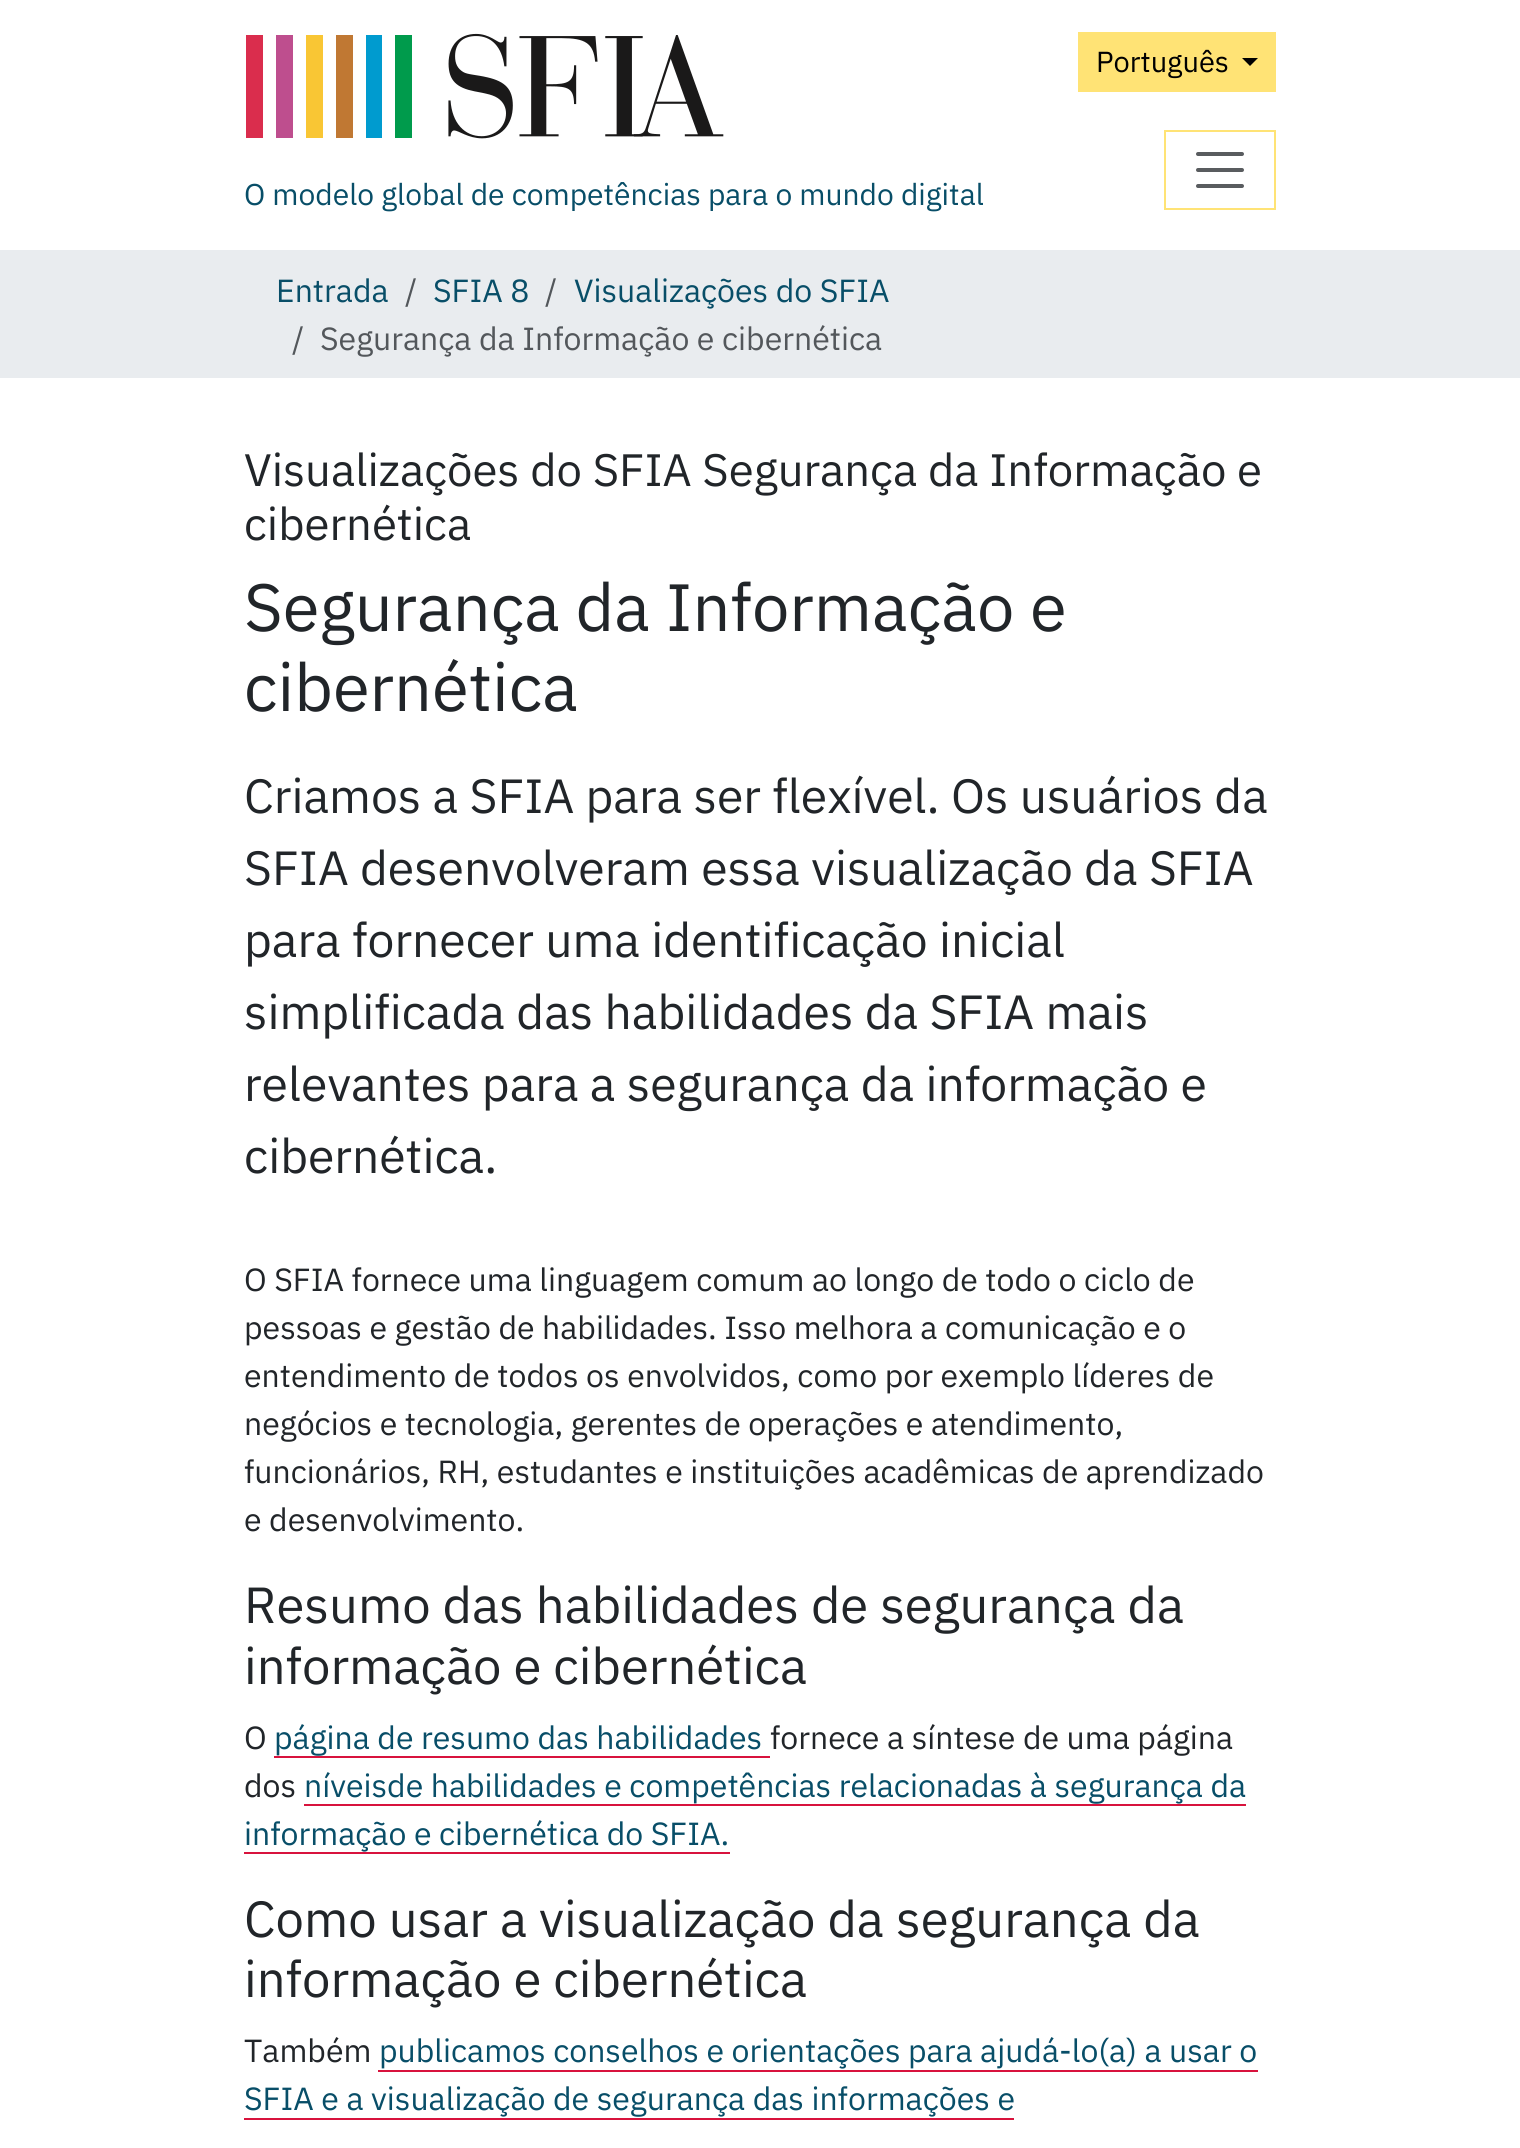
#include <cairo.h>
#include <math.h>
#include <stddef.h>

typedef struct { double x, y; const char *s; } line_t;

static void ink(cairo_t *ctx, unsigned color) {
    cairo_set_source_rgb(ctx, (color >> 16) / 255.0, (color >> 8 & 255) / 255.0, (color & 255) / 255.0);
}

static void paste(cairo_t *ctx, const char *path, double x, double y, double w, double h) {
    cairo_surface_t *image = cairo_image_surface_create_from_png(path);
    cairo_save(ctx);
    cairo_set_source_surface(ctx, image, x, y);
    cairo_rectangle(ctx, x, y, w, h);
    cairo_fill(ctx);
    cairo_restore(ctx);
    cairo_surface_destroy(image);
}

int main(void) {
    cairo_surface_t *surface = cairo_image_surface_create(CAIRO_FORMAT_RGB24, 1520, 2148);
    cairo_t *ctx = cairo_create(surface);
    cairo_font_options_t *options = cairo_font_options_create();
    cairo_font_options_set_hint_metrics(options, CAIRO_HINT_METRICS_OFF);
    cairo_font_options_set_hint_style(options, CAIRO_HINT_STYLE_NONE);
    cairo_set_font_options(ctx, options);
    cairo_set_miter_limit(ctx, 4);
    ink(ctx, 0xFFFFFF);
    cairo_paint(ctx);
    ink(ctx, 0xFFE375);
    cairo_rectangle(ctx, 1078, 32, 198, 60);
    cairo_fill(ctx);
    cairo_select_font_face(ctx, "IBM Plex Sans", CAIRO_FONT_SLANT_NORMAL, CAIRO_FONT_WEIGHT_NORMAL);
    cairo_set_font_size(ctx, 29);
    ink(ctx, 0x000000);
    cairo_move_to(ctx, 1096, 72);
    cairo_show_text(ctx, "Português");
    cairo_new_path(ctx);
    cairo_move_to(ctx, 1242, 58);
    cairo_line_to(ctx, 1258, 58);
    cairo_line_to(ctx, 1250, 66);
    cairo_close_path(ctx);
    cairo_fill(ctx);
    paste(ctx, "media/1.png", 246, 33, 478, 106);
    cairo_set_font_size(ctx, 30);
    ink(ctx, 0x084E68);
    cairo_move_to(ctx, 244, 205);
    cairo_show_text(ctx, "O modelo global de competências para o mundo digital");
    cairo_rectangle(ctx, 1165, 131, 110, 78);
    ink(ctx, 0xFFE375);
    cairo_stroke(ctx);
    cairo_new_path(ctx);
    cairo_move_to(ctx, 1198, 154);
    cairo_line_to(ctx, 1242, 154);
    cairo_move_to(ctx, 1198, 170);
    cairo_line_to(ctx, 1242, 170);
    cairo_move_to(ctx, 1198, 186);
    cairo_line_to(ctx, 1242, 186);
    ink(ctx, 0x595C5F);
    cairo_set_line_width(ctx, 4);
    cairo_set_line_cap(ctx, CAIRO_LINE_CAP_ROUND);
    cairo_stroke(ctx);
    ink(ctx, 0xE9ECEF);
    cairo_rectangle(ctx, 0, 250, 1520, 128);
    cairo_fill(ctx);
    cairo_set_font_size(ctx, 32);
    ink(ctx, 0x084E68);
    cairo_move_to(ctx, 276, 302);
    cairo_show_text(ctx, "Entrada");
    ink(ctx, 0x53575B);
    cairo_move_to(ctx, 405, 302);
    cairo_show_text(ctx, "/");
    ink(ctx, 0x084E68);
    cairo_move_to(ctx, 433, 302);
    cairo_show_text(ctx, "SFIA 8");
    ink(ctx, 0x53575B);
    cairo_move_to(ctx, 545, 302);
    cairo_show_text(ctx, "/");
    ink(ctx, 0x084E68);
    cairo_move_to(ctx, 574, 302);
    cairo_show_text(ctx, "Visualizações do SFIA");
    ink(ctx, 0x53575B);
    cairo_move_to(ctx, 292, 350);
    cairo_show_text(ctx, "/");
    cairo_move_to(ctx, 320, 350);
    cairo_show_text(ctx, "Segurança da Informação e cibernética");
    cairo_set_font_size(ctx, 45.4);
    ink(ctx, 0x212529);
    cairo_move_to(ctx, 244, 486);
    cairo_show_text(ctx, "Visualizações do SFIA Segurança da Informação e");
    cairo_move_to(ctx, 244, 540);
    cairo_show_text(ctx, "cibernética");
    cairo_set_font_size(ctx, 66.75);
    cairo_move_to(ctx, 244, 631);
    cairo_show_text(ctx, "Segurança da Informação e");
    cairo_move_to(ctx, 244, 711);
    cairo_show_text(ctx, "cibernética");
    cairo_set_font_size(ctx, 48);
    {
        static const line_t items[] = {
            {244, 813, "Criamos a SFIA para ser flexível. Os usuários da"},
            {244, 885, "SFIA desenvolveram essa visualização da SFIA"},
            {244, 957, "para fornecer uma identificação inicial"},
            {244, 1029, "simplificada das habilidades da SFIA mais"},
            {244, 1101, "relevantes para a segurança da informação e"},
            {244, 1173, "cibernética."},
        };
        for (size_t i = 0; i < sizeof items / sizeof *items; i++) {
            cairo_move_to(ctx, items[i].x, items[i].y);
            cairo_show_text(ctx, items[i].s);
        }
    }
    cairo_set_font_size(ctx, 32);
    {
        static const line_t items[] = {
            {244, 1291, "O SFIA fornece uma linguagem comum ao longo de todo o ciclo de"},
            {244, 1339, "pessoas e gestão de habilidades. Isso melhora a comunicação e o"},
            {244, 1387, "entendimento de todos os envolvidos, como por exemplo líderes de"},
            {244, 1435, "negócios e tecnologia, gerentes de operações e atendimento,"},
            {244, 1483, "funcionários, RH, estudantes e instituições acadêmicas de aprendizado"},
            {244, 1531, "e desenvolvimento."},
        };
        for (size_t i = 0; i < sizeof items / sizeof *items; i++) {
            cairo_move_to(ctx, items[i].x, items[i].y);
            cairo_show_text(ctx, items[i].s);
        }
    }
    cairo_set_font_size(ctx, 50.75);
    cairo_move_to(ctx, 244, 1623);
    cairo_show_text(ctx, "Resumo das habilidades de segurança da");
    cairo_move_to(ctx, 244, 1684);
    cairo_show_text(ctx, "informação e cibernética");
    cairo_set_font_size(ctx, 32);
    cairo_move_to(ctx, 244, 1749);
    cairo_show_text(ctx, "O");
    ink(ctx, 0x084E68);
    cairo_move_to(ctx, 274, 1749);
    cairo_show_text(ctx, "página de resumo das habilidades");
    ink(ctx, 0xD8133D);
    cairo_rectangle(ctx, 274, 1756, 496, 2);
    cairo_fill(ctx);
    ink(ctx, 0x212529);
    cairo_move_to(ctx, 770, 1749);
    cairo_show_text(ctx, "fornece a síntese de uma página");
    cairo_move_to(ctx, 244, 1797);
    cairo_show_text(ctx, "dos");
    ink(ctx, 0x084E68);
    cairo_move_to(ctx, 304, 1797);
    cairo_show_text(ctx, "níveisde habilidades e competências relacionadas à segurança da");
    ink(ctx, 0xD8133D);
    cairo_rectangle(ctx, 304, 1804, 942, 2);
    cairo_fill(ctx);
    ink(ctx, 0x084E68);
    cairo_move_to(ctx, 244, 1845);
    cairo_show_text(ctx, "informação e cibernética do SFIA.");
    ink(ctx, 0xD8133D);
    cairo_rectangle(ctx, 244, 1852, 486, 2);
    cairo_fill(ctx);
    cairo_set_font_size(ctx, 50.75);
    ink(ctx, 0x212529);
    cairo_move_to(ctx, 244, 1937);
    cairo_show_text(ctx, "Como usar a visualização da segurança da");
    cairo_move_to(ctx, 244, 1997);
    cairo_show_text(ctx, "informação e cibernética");
    cairo_set_font_size(ctx, 32);
    cairo_move_to(ctx, 244, 2062);
    cairo_show_text(ctx, "Também");
    ink(ctx, 0x084E68);
    cairo_move_to(ctx, 379, 2062);
    cairo_show_text(ctx, "publicamos conselhos e orientações para ajudá-lo(a) a usar o");
    ink(ctx, 0xD8133D);
    cairo_rectangle(ctx, 378, 2070, 880, 2);
    cairo_fill(ctx);
    ink(ctx, 0x084E68);
    cairo_move_to(ctx, 244, 2110);
    cairo_show_text(ctx, "SFIA e a visualização de segurança das informações e");
    ink(ctx, 0xD8133D);
    cairo_rectangle(ctx, 244, 2118, 770, 2);
    cairo_fill(ctx);
    cairo_surface_write_to_png(surface, "image.png");
    cairo_font_options_destroy(options);
    cairo_destroy(ctx);
    cairo_surface_destroy(surface);
    return 0;
}
